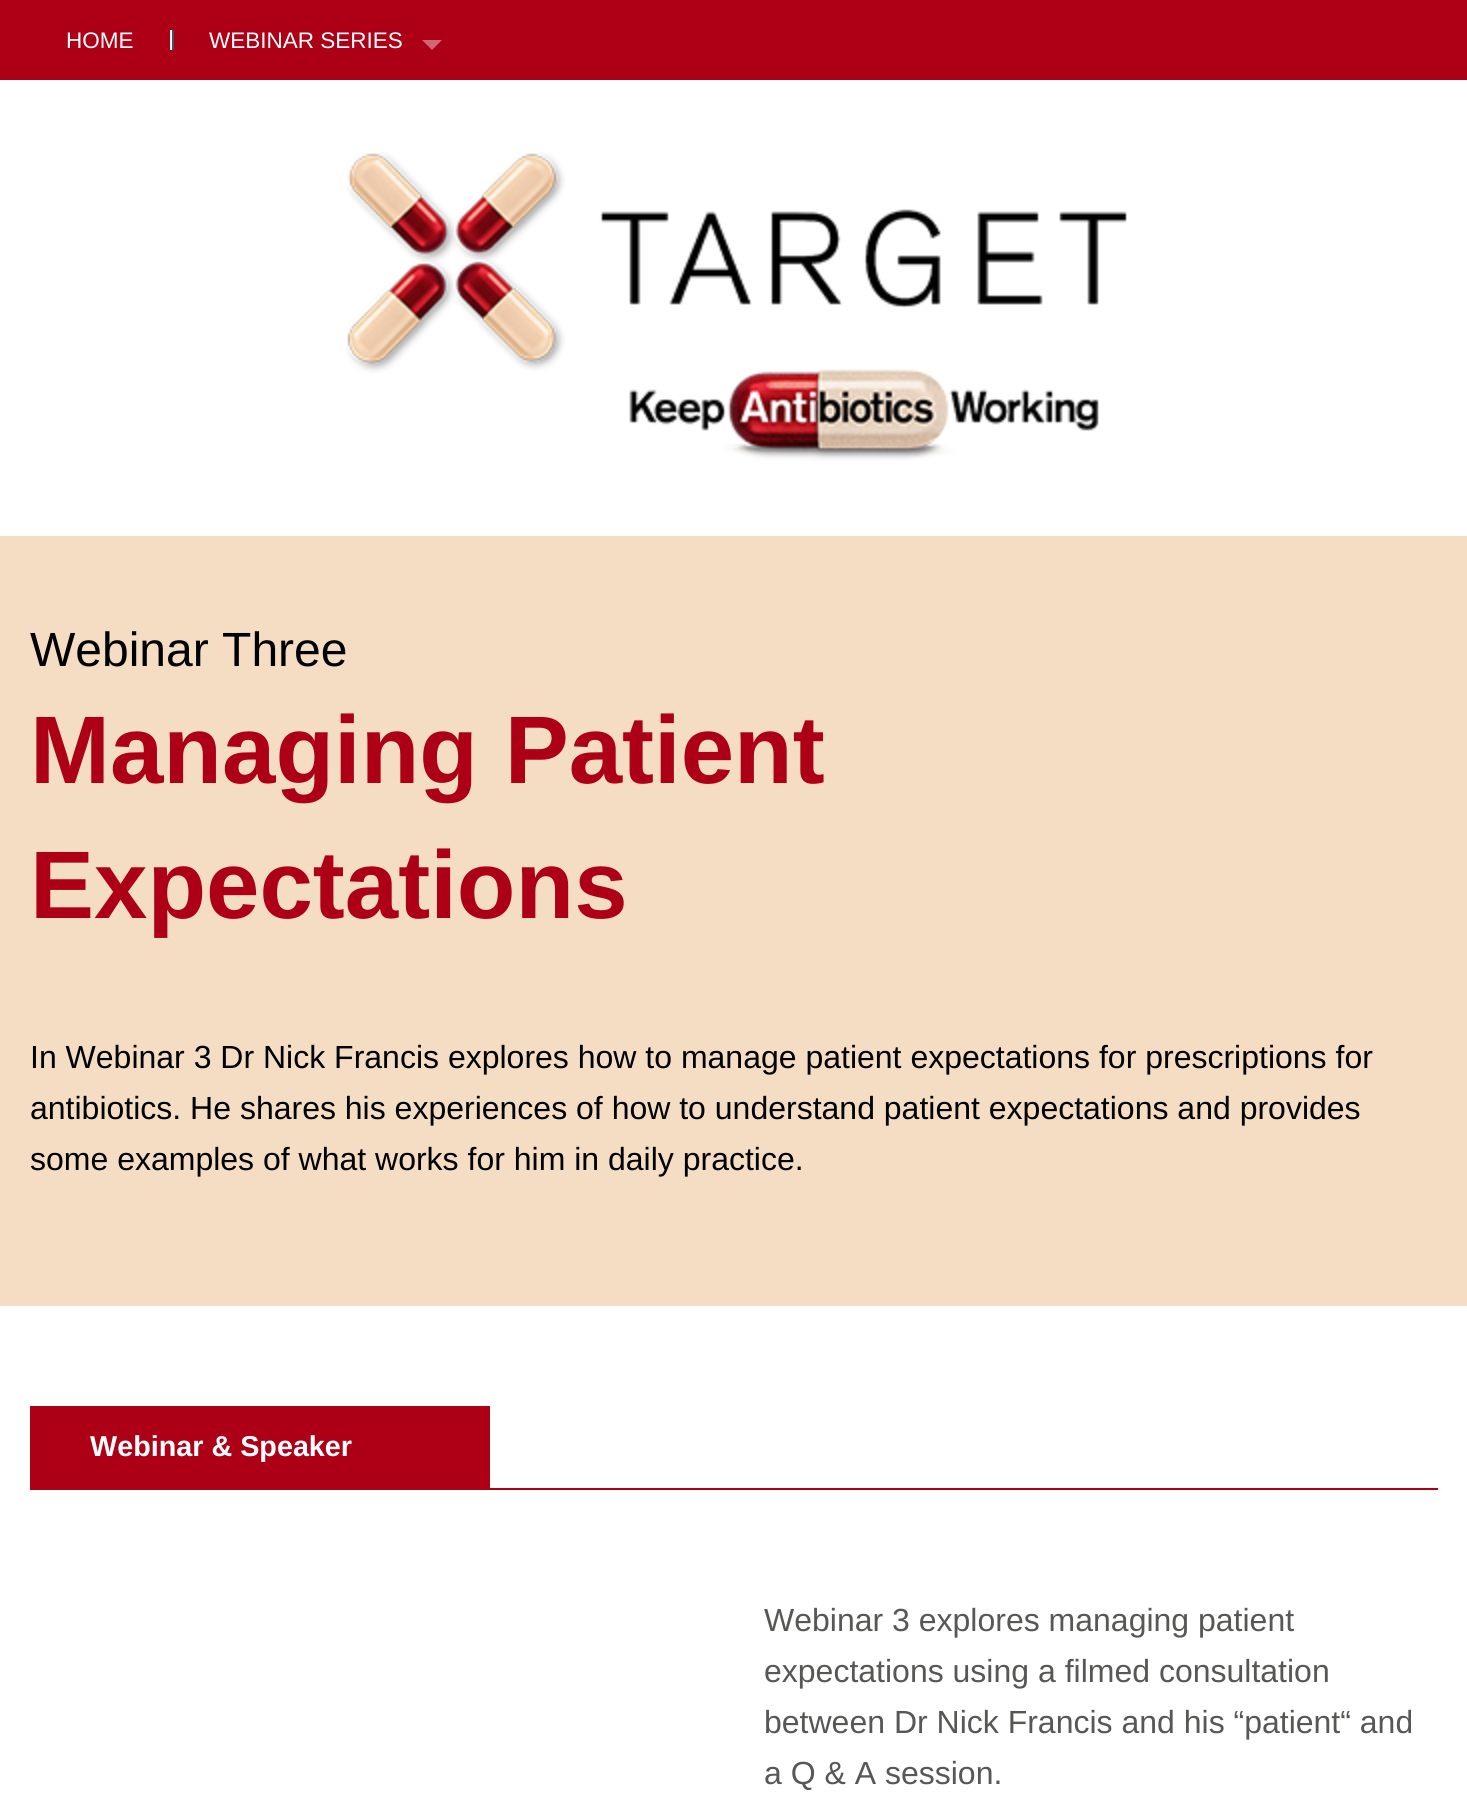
#include <cairo.h>
#include <math.h>
#include <stddef.h>

typedef struct { double x, y; const char *s; } line_t;

static void ink(cairo_t *ctx, unsigned color) {
    cairo_set_source_rgb(ctx, (color >> 16) / 255.0, (color >> 8 & 255) / 255.0, (color & 255) / 255.0);
}

static void paste(cairo_t *ctx, const char *path, double x, double y, double w, double h) {
    cairo_surface_t *image = cairo_image_surface_create_from_png(path);
    cairo_save(ctx);
    cairo_set_source_surface(ctx, image, x, y);
    cairo_rectangle(ctx, x, y, w, h);
    cairo_fill(ctx);
    cairo_restore(ctx);
    cairo_surface_destroy(image);
}

int main(void) {
    cairo_surface_t *surface = cairo_image_surface_create(CAIRO_FORMAT_RGB24, 1467, 1796);
    cairo_t *ctx = cairo_create(surface);
    cairo_font_options_t *options = cairo_font_options_create();
    cairo_font_options_set_hint_metrics(options, CAIRO_HINT_METRICS_OFF);
    cairo_font_options_set_hint_style(options, CAIRO_HINT_STYLE_NONE);
    cairo_set_font_options(ctx, options);
    cairo_set_miter_limit(ctx, 4);
    ink(ctx, 0xFFFFFF);
    cairo_paint(ctx);
    ink(ctx, 0xAD0016);
    cairo_rectangle(ctx, 0, 0, 1467, 80);
    cairo_fill(ctx);
    cairo_select_font_face(ctx, "Liberation Sans", CAIRO_FONT_SLANT_NORMAL, CAIRO_FONT_WEIGHT_NORMAL);
    cairo_set_font_size(ctx, 22.5);
    ink(ctx, 0xFFFFFF);
    cairo_move_to(ctx, 66, 48);
    cairo_show_text(ctx, "HOME");
    ink(ctx, 0x4E4E4E);
    cairo_rectangle(ctx, 172, 30, 2, 20);
    cairo_fill(ctx);
    ink(ctx, 0xFFFFFF);
    cairo_rectangle(ctx, 170, 30, 2, 20);
    cairo_fill(ctx);
    cairo_move_to(ctx, 209, 48);
    cairo_show_text(ctx, "WEBINAR SERIES");
    ink(ctx, 0xCE6673);
    cairo_new_path(ctx);
    cairo_move_to(ctx, 422, 40);
    cairo_line_to(ctx, 442, 40);
    cairo_line_to(ctx, 432, 50);
    cairo_close_path(ctx);
    cairo_fill(ctx);
    paste(ctx, "media/1.png", 346, 152, 781, 309);
    ink(ctx, 0xF4DDC3);
    cairo_rectangle(ctx, 0, 536, 1467, 770);
    cairo_fill(ctx);
    cairo_set_font_size(ctx, 48);
    ink(ctx, 0x000000);
    cairo_move_to(ctx, 30, 666);
    cairo_show_text(ctx, "Webinar Three");
    cairo_select_font_face(ctx, "Liberation Sans", CAIRO_FONT_SLANT_NORMAL, CAIRO_FONT_WEIGHT_BOLD);
    cairo_set_font_size(ctx, 96);
    ink(ctx, 0xAD0016);
    cairo_move_to(ctx, 30, 783);
    cairo_show_text(ctx, "Managing Patient");
    cairo_move_to(ctx, 30, 918);
    cairo_show_text(ctx, "Expectations");
    cairo_select_font_face(ctx, "Liberation Sans", CAIRO_FONT_SLANT_NORMAL, CAIRO_FONT_WEIGHT_NORMAL);
    cairo_set_font_size(ctx, 32);
    ink(ctx, 0x000000);
    {
        static const line_t items[] = {
            {30, 1068, "In Webinar 3 Dr Nick Francis explores how to manage patient expectations for prescriptions for"},
            {30, 1119, "antibiotics. He shares his experiences of how to understand patient expectations and provides"},
            {30, 1170, "some examples of what works for him in daily practice."},
        };
        for (size_t i = 0; i < sizeof items / sizeof *items; i++) {
            cairo_move_to(ctx, items[i].x, items[i].y);
            cairo_show_text(ctx, items[i].s);
        }
    }
    ink(ctx, 0xAD0016);
    cairo_rectangle(ctx, 30, 1488, 1408, 2);
    cairo_fill(ctx);
    cairo_rectangle(ctx, 30, 1406, 460, 82);
    cairo_fill(ctx);
    cairo_select_font_face(ctx, "Liberation Sans", CAIRO_FONT_SLANT_NORMAL, CAIRO_FONT_WEIGHT_BOLD);
    cairo_set_font_size(ctx, 28.75);
    ink(ctx, 0xFFFFFF);
    cairo_move_to(ctx, 90, 1456);
    cairo_show_text(ctx, "Webinar & Speaker");
    cairo_select_font_face(ctx, "Liberation Sans", CAIRO_FONT_SLANT_NORMAL, CAIRO_FONT_WEIGHT_NORMAL);
    cairo_set_font_size(ctx, 32);
    ink(ctx, 0x575756);
    {
        static const line_t items[] = {
            {764, 1631, "Webinar 3 explores managing patient"},
            {764, 1682, "expectations using a filmed consultation"},
            {764, 1733, "between Dr Nick Francis and his “patient“ and"},
            {764, 1784, "a Q & A session."},
        };
        for (size_t i = 0; i < sizeof items / sizeof *items; i++) {
            cairo_move_to(ctx, items[i].x, items[i].y);
            cairo_show_text(ctx, items[i].s);
        }
    }
    cairo_surface_write_to_png(surface, "image.png");
    cairo_font_options_destroy(options);
    cairo_destroy(ctx);
    cairo_surface_destroy(surface);
    return 0;
}
